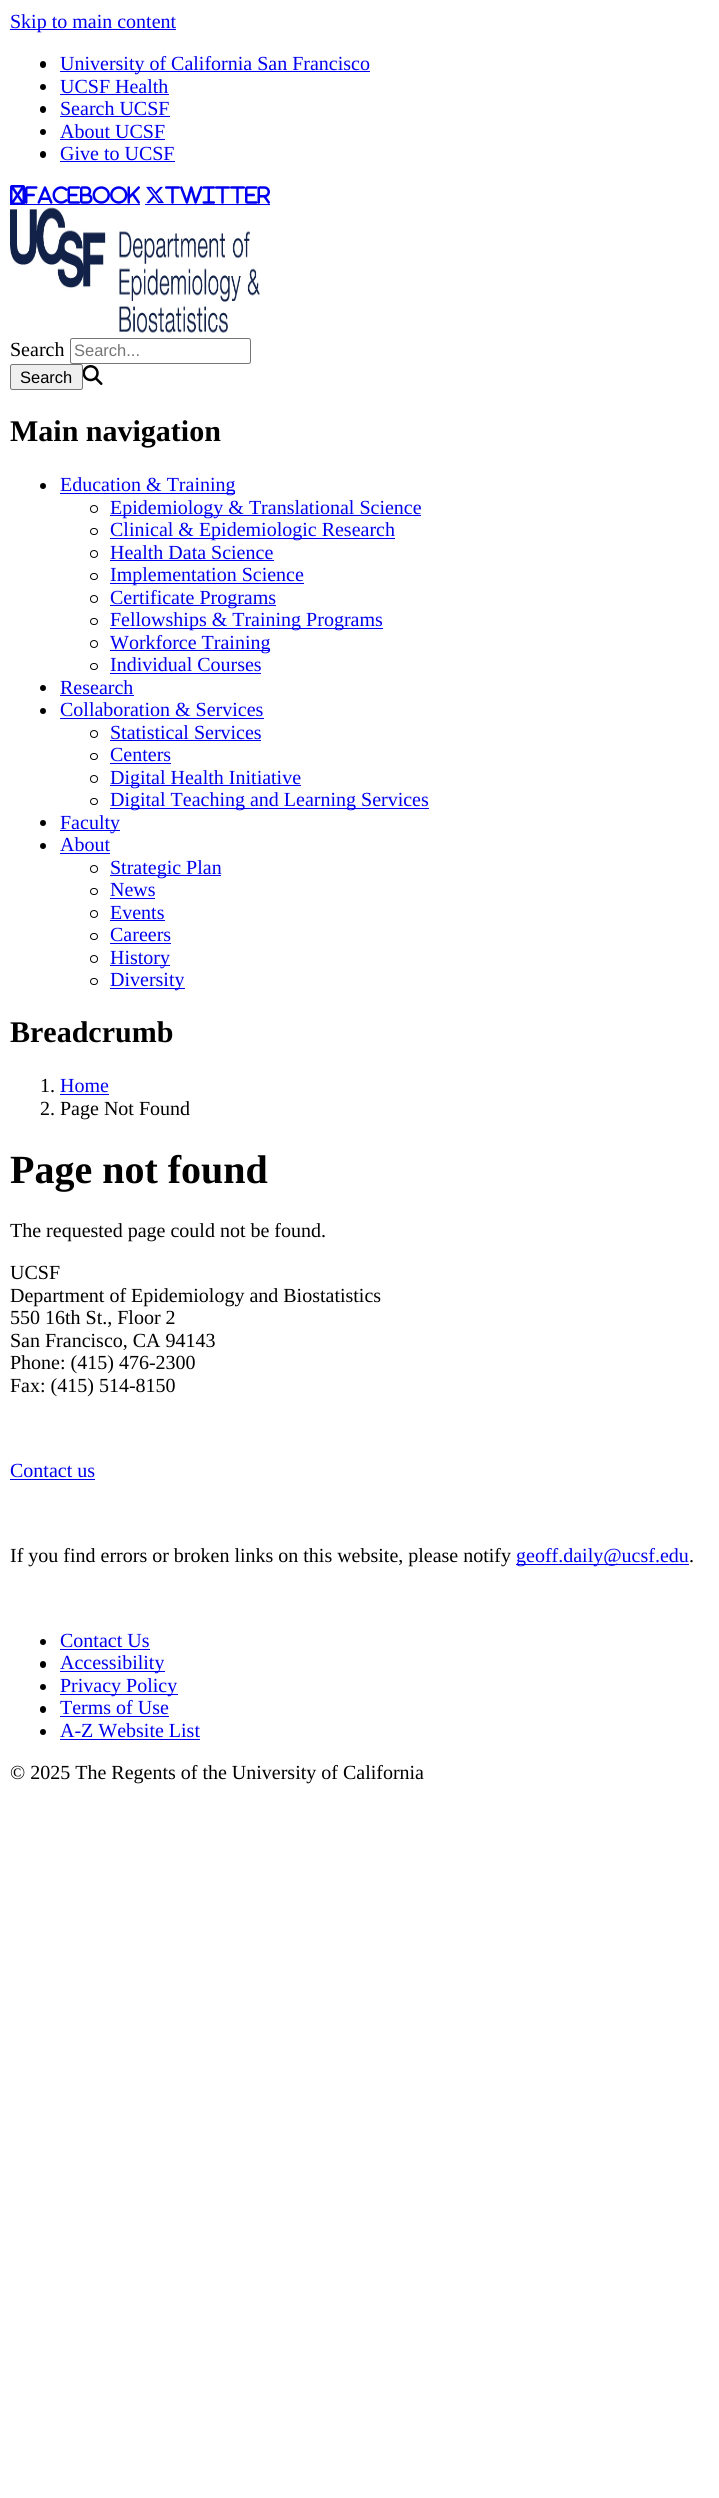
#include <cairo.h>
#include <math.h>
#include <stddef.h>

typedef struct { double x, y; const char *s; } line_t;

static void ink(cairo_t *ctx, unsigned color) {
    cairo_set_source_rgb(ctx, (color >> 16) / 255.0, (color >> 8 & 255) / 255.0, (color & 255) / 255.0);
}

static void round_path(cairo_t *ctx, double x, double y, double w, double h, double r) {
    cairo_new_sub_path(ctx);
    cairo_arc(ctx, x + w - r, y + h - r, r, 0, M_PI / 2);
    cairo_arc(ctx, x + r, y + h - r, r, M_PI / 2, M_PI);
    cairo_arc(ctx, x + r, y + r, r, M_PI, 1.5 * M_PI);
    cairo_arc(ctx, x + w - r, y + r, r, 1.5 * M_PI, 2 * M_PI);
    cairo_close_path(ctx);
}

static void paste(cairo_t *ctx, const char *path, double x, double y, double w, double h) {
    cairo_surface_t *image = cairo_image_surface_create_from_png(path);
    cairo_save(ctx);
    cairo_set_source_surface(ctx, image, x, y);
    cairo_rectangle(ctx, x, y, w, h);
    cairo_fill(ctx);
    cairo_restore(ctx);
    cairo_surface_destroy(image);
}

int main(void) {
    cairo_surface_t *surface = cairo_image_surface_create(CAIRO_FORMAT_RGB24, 719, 2498);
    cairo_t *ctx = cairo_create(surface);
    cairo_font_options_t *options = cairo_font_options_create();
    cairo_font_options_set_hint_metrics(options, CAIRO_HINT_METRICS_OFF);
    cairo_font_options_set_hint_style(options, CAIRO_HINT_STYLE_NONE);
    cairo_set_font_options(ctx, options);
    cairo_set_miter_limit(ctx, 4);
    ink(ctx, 0xFFFFFF);
    cairo_paint(ctx);
    ink(ctx, 0x0000EE);
    cairo_rectangle(ctx, 10, 29, 166, 1);
    cairo_fill(ctx);
    cairo_select_font_face(ctx, "Liberation Serif", CAIRO_FONT_SLANT_NORMAL, CAIRO_FONT_WEIGHT_NORMAL);
    cairo_set_font_size(ctx, 20);
    cairo_move_to(ctx, 10, 28);
    cairo_show_text(ctx, "Skip to main content");
    ink(ctx, 0x000000);
    round_path(ctx, 40, 61, 6, 7, 3);
    cairo_fill(ctx);
    ink(ctx, 0x0000EE);
    cairo_rectangle(ctx, 60, 71, 310, 1);
    cairo_fill(ctx);
    cairo_move_to(ctx, 60, 70);
    cairo_show_text(ctx, "University of California San Francisco");
    ink(ctx, 0x000000);
    cairo_new_path(ctx);
    cairo_arc(ctx, 43, 87, 3, 0, 2 * M_PI);
    cairo_fill(ctx);
    ink(ctx, 0x0000EE);
    cairo_move_to(ctx, 60, 93);
    cairo_show_text(ctx, "UCSF Health");
    cairo_rectangle(ctx, 60, 94, 109, 1);
    cairo_fill(ctx);
    ink(ctx, 0x000000);
    round_path(ctx, 40, 106, 6, 7, 3);
    cairo_fill(ctx);
    ink(ctx, 0x0000EE);
    cairo_move_to(ctx, 60, 115);
    cairo_show_text(ctx, "Search UCSF");
    cairo_rectangle(ctx, 60, 116, 110, 1);
    cairo_fill(ctx);
    ink(ctx, 0x000000);
    cairo_arc(ctx, 43, 132, 3, 0, 2 * M_PI);
    cairo_fill(ctx);
    ink(ctx, 0x0000EE);
    cairo_move_to(ctx, 60, 138);
    cairo_show_text(ctx, "About UCSF");
    cairo_rectangle(ctx, 60, 139, 105, 1);
    cairo_fill(ctx);
    ink(ctx, 0x000000);
    round_path(ctx, 40, 151, 6, 7, 3);
    cairo_fill(ctx);
    ink(ctx, 0x0000EE);
    cairo_move_to(ctx, 60, 160);
    cairo_show_text(ctx, "Give to UCSF");
    cairo_rectangle(ctx, 60, 161, 115, 1);
    cairo_fill(ctx);
    paste(ctx, "media/1.png", 10, 185, 15, 19);
    paste(ctx, "media/2.png", 25, 186, 115, 18);
    cairo_rectangle(ctx, 10, 204, 130, 1);
    cairo_fill(ctx);
    paste(ctx, "media/3.png", 146, 186, 18, 18);
    paste(ctx, "media/4.png", 165, 186, 105, 18);
    cairo_rectangle(ctx, 145, 204, 125, 1);
    cairo_fill(ctx);
    paste(ctx, "media/5.png", 10, 207, 250, 126);
    ink(ctx, 0x000000);
    cairo_move_to(ctx, 10, 356);
    cairo_show_text(ctx, "Search");
    round_path(ctx, 70.5, 338.5, 180, 25, 2);
    ink(ctx, 0x767676);
    cairo_set_line_width(ctx, 1);
    cairo_stroke(ctx);
    cairo_select_font_face(ctx, "Liberation Sans", CAIRO_FONT_SLANT_NORMAL, CAIRO_FONT_WEIGHT_NORMAL);
    cairo_set_font_size(ctx, 16.5);
    ink(ctx, 0x757575);
    cairo_move_to(ctx, 74, 356);
    cairo_show_text(ctx, "Search...");
    ink(ctx, 0xEFEFEF);
    round_path(ctx, 10.5, 364.5, 72, 25, 2);
    cairo_fill_preserve(ctx);
    ink(ctx, 0x767676);
    cairo_stroke(ctx);
    ink(ctx, 0x000000);
    cairo_move_to(ctx, 20, 383);
    cairo_show_text(ctx, "Search");
    paste(ctx, "media/6.png", 83, 365, 20, 20);
    cairo_select_font_face(ctx, "Liberation Serif", CAIRO_FONT_SLANT_NORMAL, CAIRO_FONT_WEIGHT_BOLD);
    cairo_set_font_size(ctx, 30);
    cairo_move_to(ctx, 10, 441);
    cairo_show_text(ctx, "Main navigation");
    cairo_new_path(ctx);
    cairo_arc(ctx, 43, 486, 3, 0, 2 * M_PI);
    cairo_fill(ctx);
    ink(ctx, 0x0000EE);
    cairo_rectangle(ctx, 60, 493, 175, 1);
    cairo_fill(ctx);
    cairo_select_font_face(ctx, "Liberation Serif", CAIRO_FONT_SLANT_NORMAL, CAIRO_FONT_WEIGHT_NORMAL);
    cairo_set_font_size(ctx, 20);
    cairo_move_to(ctx, 60, 491);
    cairo_show_text(ctx, "Education & Training");
    cairo_new_path(ctx);
    cairo_arc(ctx, 94, 509, 3.5, 0, 2 * M_PI);
    ink(ctx, 0x000000);
    cairo_stroke(ctx);
    ink(ctx, 0x0000EE);
    cairo_rectangle(ctx, 110, 515, 311, 1);
    cairo_fill(ctx);
    cairo_move_to(ctx, 110, 514);
    cairo_show_text(ctx, "Epidemiology & Translational Science");
    round_path(ctx, 90.5, 528.5, 7, 6, 3);
    ink(ctx, 0x000000);
    cairo_stroke(ctx);
    ink(ctx, 0x0000EE);
    cairo_rectangle(ctx, 110, 538, 285, 1);
    cairo_fill(ctx);
    cairo_move_to(ctx, 110, 536);
    cairo_show_text(ctx, "Clinical & Epidemiologic Research");
    cairo_new_path(ctx);
    cairo_arc(ctx, 94, 554, 3.5, 0, 2 * M_PI);
    ink(ctx, 0x000000);
    cairo_stroke(ctx);
    ink(ctx, 0x0000EE);
    cairo_move_to(ctx, 110, 559);
    cairo_show_text(ctx, "Health Data Science");
    cairo_rectangle(ctx, 110, 560, 164, 1);
    cairo_fill(ctx);
    round_path(ctx, 90.5, 573.5, 7, 6, 3);
    ink(ctx, 0x000000);
    cairo_stroke(ctx);
    ink(ctx, 0x0000EE);
    cairo_rectangle(ctx, 110, 583, 194, 1);
    cairo_fill(ctx);
    cairo_move_to(ctx, 110, 581);
    cairo_show_text(ctx, "Implementation Science");
    cairo_new_path(ctx);
    cairo_arc(ctx, 94, 599, 3.5, 0, 2 * M_PI);
    ink(ctx, 0x000000);
    cairo_stroke(ctx);
    ink(ctx, 0x0000EE);
    cairo_rectangle(ctx, 110, 605, 166, 1);
    cairo_fill(ctx);
    cairo_move_to(ctx, 110, 604);
    cairo_show_text(ctx, "Certificate Programs");
    round_path(ctx, 90.5, 618.5, 7, 6, 3);
    ink(ctx, 0x000000);
    cairo_stroke(ctx);
    ink(ctx, 0x0000EE);
    cairo_rectangle(ctx, 110, 628, 273, 1);
    cairo_fill(ctx);
    cairo_move_to(ctx, 110, 626);
    cairo_show_text(ctx, "Fellowships & Training Programs");
    cairo_new_path(ctx);
    cairo_arc(ctx, 94, 644, 3.5, 0, 2 * M_PI);
    ink(ctx, 0x000000);
    cairo_stroke(ctx);
    ink(ctx, 0x0000EE);
    cairo_rectangle(ctx, 110, 650, 160, 1);
    cairo_fill(ctx);
    cairo_move_to(ctx, 110, 649);
    cairo_show_text(ctx, "Workforce Training");
    round_path(ctx, 90.5, 663.5, 7, 6, 3);
    ink(ctx, 0x000000);
    cairo_stroke(ctx);
    ink(ctx, 0x0000EE);
    cairo_move_to(ctx, 110, 671);
    cairo_show_text(ctx, "Individual Courses");
    cairo_rectangle(ctx, 110, 673, 151, 1);
    cairo_fill(ctx);
    ink(ctx, 0x000000);
    cairo_arc(ctx, 43, 688, 3, 0, 2 * M_PI);
    cairo_fill(ctx);
    ink(ctx, 0x0000EE);
    cairo_move_to(ctx, 60, 694);
    cairo_show_text(ctx, "Research");
    cairo_rectangle(ctx, 60, 695, 74, 1);
    cairo_fill(ctx);
    ink(ctx, 0x000000);
    cairo_arc(ctx, 43, 711, 3, 0, 2 * M_PI);
    cairo_fill(ctx);
    ink(ctx, 0x0000EE);
    cairo_move_to(ctx, 60, 716);
    cairo_show_text(ctx, "Collaboration & Services");
    cairo_rectangle(ctx, 60, 718, 204, 1);
    cairo_fill(ctx);
    cairo_arc(ctx, 94, 734, 3.5, 0, 2 * M_PI);
    ink(ctx, 0x000000);
    cairo_stroke(ctx);
    ink(ctx, 0x0000EE);
    cairo_move_to(ctx, 110, 739);
    cairo_show_text(ctx, "Statistical Services");
    cairo_rectangle(ctx, 110, 740, 151, 1);
    cairo_fill(ctx);
    round_path(ctx, 90.5, 753.5, 7, 6, 3);
    ink(ctx, 0x000000);
    cairo_stroke(ctx);
    ink(ctx, 0x0000EE);
    cairo_move_to(ctx, 110, 761);
    cairo_show_text(ctx, "Centers");
    cairo_rectangle(ctx, 110, 763, 61, 1);
    cairo_fill(ctx);
    cairo_arc(ctx, 94, 779, 3.5, 0, 2 * M_PI);
    ink(ctx, 0x000000);
    cairo_stroke(ctx);
    ink(ctx, 0x0000EE);
    cairo_rectangle(ctx, 110, 785, 191, 1);
    cairo_fill(ctx);
    cairo_move_to(ctx, 110, 784);
    cairo_show_text(ctx, "Digital Health Initiative");
    round_path(ctx, 90.5, 798.5, 7, 6, 3);
    ink(ctx, 0x000000);
    cairo_stroke(ctx);
    ink(ctx, 0x0000EE);
    cairo_rectangle(ctx, 110, 808, 319, 1);
    cairo_fill(ctx);
    cairo_move_to(ctx, 110, 806);
    cairo_show_text(ctx, "Digital Teaching and Learning Services");
    ink(ctx, 0x000000);
    cairo_new_path(ctx);
    cairo_arc(ctx, 43, 823, 3, 0, 2 * M_PI);
    cairo_fill(ctx);
    ink(ctx, 0x0000EE);
    cairo_rectangle(ctx, 60, 830, 60, 1);
    cairo_fill(ctx);
    cairo_move_to(ctx, 60, 829);
    cairo_show_text(ctx, "Faculty");
    ink(ctx, 0x000000);
    cairo_new_path(ctx);
    cairo_arc(ctx, 43, 846, 3, 0, 2 * M_PI);
    cairo_fill(ctx);
    ink(ctx, 0x0000EE);
    cairo_move_to(ctx, 60, 851);
    cairo_show_text(ctx, "About");
    cairo_rectangle(ctx, 60, 853, 50, 1);
    cairo_fill(ctx);
    cairo_arc(ctx, 94, 869, 3.5, 0, 2 * M_PI);
    ink(ctx, 0x000000);
    cairo_stroke(ctx);
    ink(ctx, 0x0000EE);
    cairo_rectangle(ctx, 110, 875, 111, 1);
    cairo_fill(ctx);
    cairo_move_to(ctx, 110, 874);
    cairo_show_text(ctx, "Strategic Plan");
    round_path(ctx, 90.5, 888.5, 7, 6, 3);
    ink(ctx, 0x000000);
    cairo_stroke(ctx);
    ink(ctx, 0x0000EE);
    cairo_move_to(ctx, 110, 896);
    cairo_show_text(ctx, "News");
    cairo_rectangle(ctx, 110, 898, 45, 1);
    cairo_fill(ctx);
    cairo_arc(ctx, 94, 914, 3.5, 0, 2 * M_PI);
    ink(ctx, 0x000000);
    cairo_stroke(ctx);
    ink(ctx, 0x0000EE);
    cairo_move_to(ctx, 110, 919);
    cairo_show_text(ctx, "Events");
    cairo_rectangle(ctx, 110, 920, 55, 1);
    cairo_fill(ctx);
    round_path(ctx, 90.5, 933.5, 7, 6, 3);
    ink(ctx, 0x000000);
    cairo_stroke(ctx);
    ink(ctx, 0x0000EE);
    cairo_move_to(ctx, 110, 941);
    cairo_show_text(ctx, "Careers");
    cairo_rectangle(ctx, 110, 943, 61, 1);
    cairo_fill(ctx);
    cairo_arc(ctx, 94, 959, 3.5, 0, 2 * M_PI);
    ink(ctx, 0x000000);
    cairo_stroke(ctx);
    ink(ctx, 0x0000EE);
    cairo_rectangle(ctx, 110, 965, 60, 1);
    cairo_fill(ctx);
    cairo_move_to(ctx, 110, 964);
    cairo_show_text(ctx, "History");
    round_path(ctx, 90.5, 978.5, 7, 6, 3);
    ink(ctx, 0x000000);
    cairo_stroke(ctx);
    ink(ctx, 0x0000EE);
    cairo_rectangle(ctx, 110, 988, 75, 1);
    cairo_fill(ctx);
    cairo_move_to(ctx, 110, 986);
    cairo_show_text(ctx, "Diversity");
    cairo_select_font_face(ctx, "Liberation Serif", CAIRO_FONT_SLANT_NORMAL, CAIRO_FONT_WEIGHT_BOLD);
    cairo_set_font_size(ctx, 30);
    ink(ctx, 0x000000);
    cairo_move_to(ctx, 10, 1042);
    cairo_show_text(ctx, "Breadcrumb");
    cairo_select_font_face(ctx, "Liberation Serif", CAIRO_FONT_SLANT_NORMAL, CAIRO_FONT_WEIGHT_NORMAL);
    cairo_set_font_size(ctx, 20);
    cairo_move_to(ctx, 40, 1092);
    cairo_show_text(ctx, "1.");
    ink(ctx, 0x0000EE);
    cairo_move_to(ctx, 60, 1092);
    cairo_show_text(ctx, "Home");
    cairo_rectangle(ctx, 60, 1094, 49, 1);
    cairo_fill(ctx);
    ink(ctx, 0x000000);
    cairo_move_to(ctx, 40, 1115);
    cairo_show_text(ctx, "2. Page Not Found");
    cairo_select_font_face(ctx, "Liberation Serif", CAIRO_FONT_SLANT_NORMAL, CAIRO_FONT_WEIGHT_BOLD);
    cairo_set_font_size(ctx, 40);
    cairo_move_to(ctx, 10, 1183);
    cairo_show_text(ctx, "Page not found");
    cairo_select_font_face(ctx, "Liberation Serif", CAIRO_FONT_SLANT_NORMAL, CAIRO_FONT_WEIGHT_NORMAL);
    cairo_set_font_size(ctx, 20);
    {
        static const line_t items[] = {
            {10, 1237, "The requested page could not be found."},
            {10, 1279, "UCSF"},
            {10, 1302, "Department of Epidemiology and Biostatistics"},
            {10, 1324, "550 16th St., Floor 2"},
            {10, 1347, "San Francisco, CA 94143"},
            {10, 1369, "Phone: (415) 476-2300"},
            {10, 1392, "Fax: (415) 514-8150"},
        };
        for (size_t i = 0; i < sizeof items / sizeof *items; i++) {
            cairo_move_to(ctx, items[i].x, items[i].y);
            cairo_show_text(ctx, items[i].s);
        }
    }
    ink(ctx, 0x0000EE);
    cairo_move_to(ctx, 10, 1477);
    cairo_show_text(ctx, "Contact us");
    cairo_rectangle(ctx, 10, 1479, 85, 1);
    cairo_fill(ctx);
    ink(ctx, 0x000000);
    cairo_move_to(ctx, 10, 1562);
    cairo_show_text(ctx, "If you find errors or broken links on this website, please notify");
    ink(ctx, 0x0000EE);
    cairo_rectangle(ctx, 516, 1564, 173, 1);
    cairo_fill(ctx);
    cairo_move_to(ctx, 516, 1562);
    cairo_show_text(ctx, "geoff.daily@ucsf.edu");
    ink(ctx, 0x000000);
    cairo_move_to(ctx, 689, 1562);
    cairo_show_text(ctx, ".");
    cairo_new_path(ctx);
    cairo_arc(ctx, 43, 1642, 3, 0, 2 * M_PI);
    cairo_fill(ctx);
    ink(ctx, 0x0000EE);
    cairo_move_to(ctx, 60, 1647);
    cairo_show_text(ctx, "Contact Us");
    cairo_rectangle(ctx, 60, 1649, 90, 1);
    cairo_fill(ctx);
    ink(ctx, 0x000000);
    round_path(ctx, 40, 1661, 6, 7, 3);
    cairo_fill(ctx);
    ink(ctx, 0x0000EE);
    cairo_rectangle(ctx, 60, 1671, 105, 1);
    cairo_fill(ctx);
    cairo_move_to(ctx, 60, 1669);
    cairo_show_text(ctx, "Accessibility");
    ink(ctx, 0x000000);
    cairo_new_path(ctx);
    cairo_arc(ctx, 43, 1687, 3, 0, 2 * M_PI);
    cairo_fill(ctx);
    ink(ctx, 0x0000EE);
    cairo_rectangle(ctx, 60, 1694, 118, 1);
    cairo_fill(ctx);
    cairo_move_to(ctx, 60, 1692);
    cairo_show_text(ctx, "Privacy Policy");
    ink(ctx, 0x000000);
    round_path(ctx, 40, 1706, 6, 7, 3);
    cairo_fill(ctx);
    ink(ctx, 0x0000EE);
    cairo_move_to(ctx, 60, 1714);
    cairo_show_text(ctx, "Terms of Use");
    cairo_rectangle(ctx, 60, 1716, 109, 1);
    cairo_fill(ctx);
    ink(ctx, 0x000000);
    cairo_arc(ctx, 43, 1732, 3, 0, 2 * M_PI);
    cairo_fill(ctx);
    ink(ctx, 0x0000EE);
    cairo_move_to(ctx, 60, 1737);
    cairo_show_text(ctx, "A-Z Website List");
    cairo_rectangle(ctx, 60, 1739, 140, 1);
    cairo_fill(ctx);
    ink(ctx, 0x000000);
    cairo_move_to(ctx, 10, 1779);
    cairo_show_text(ctx, "© 2025 The Regents of the University of California");
    cairo_surface_write_to_png(surface, "image.png");
    cairo_font_options_destroy(options);
    cairo_destroy(ctx);
    cairo_surface_destroy(surface);
    return 0;
}
